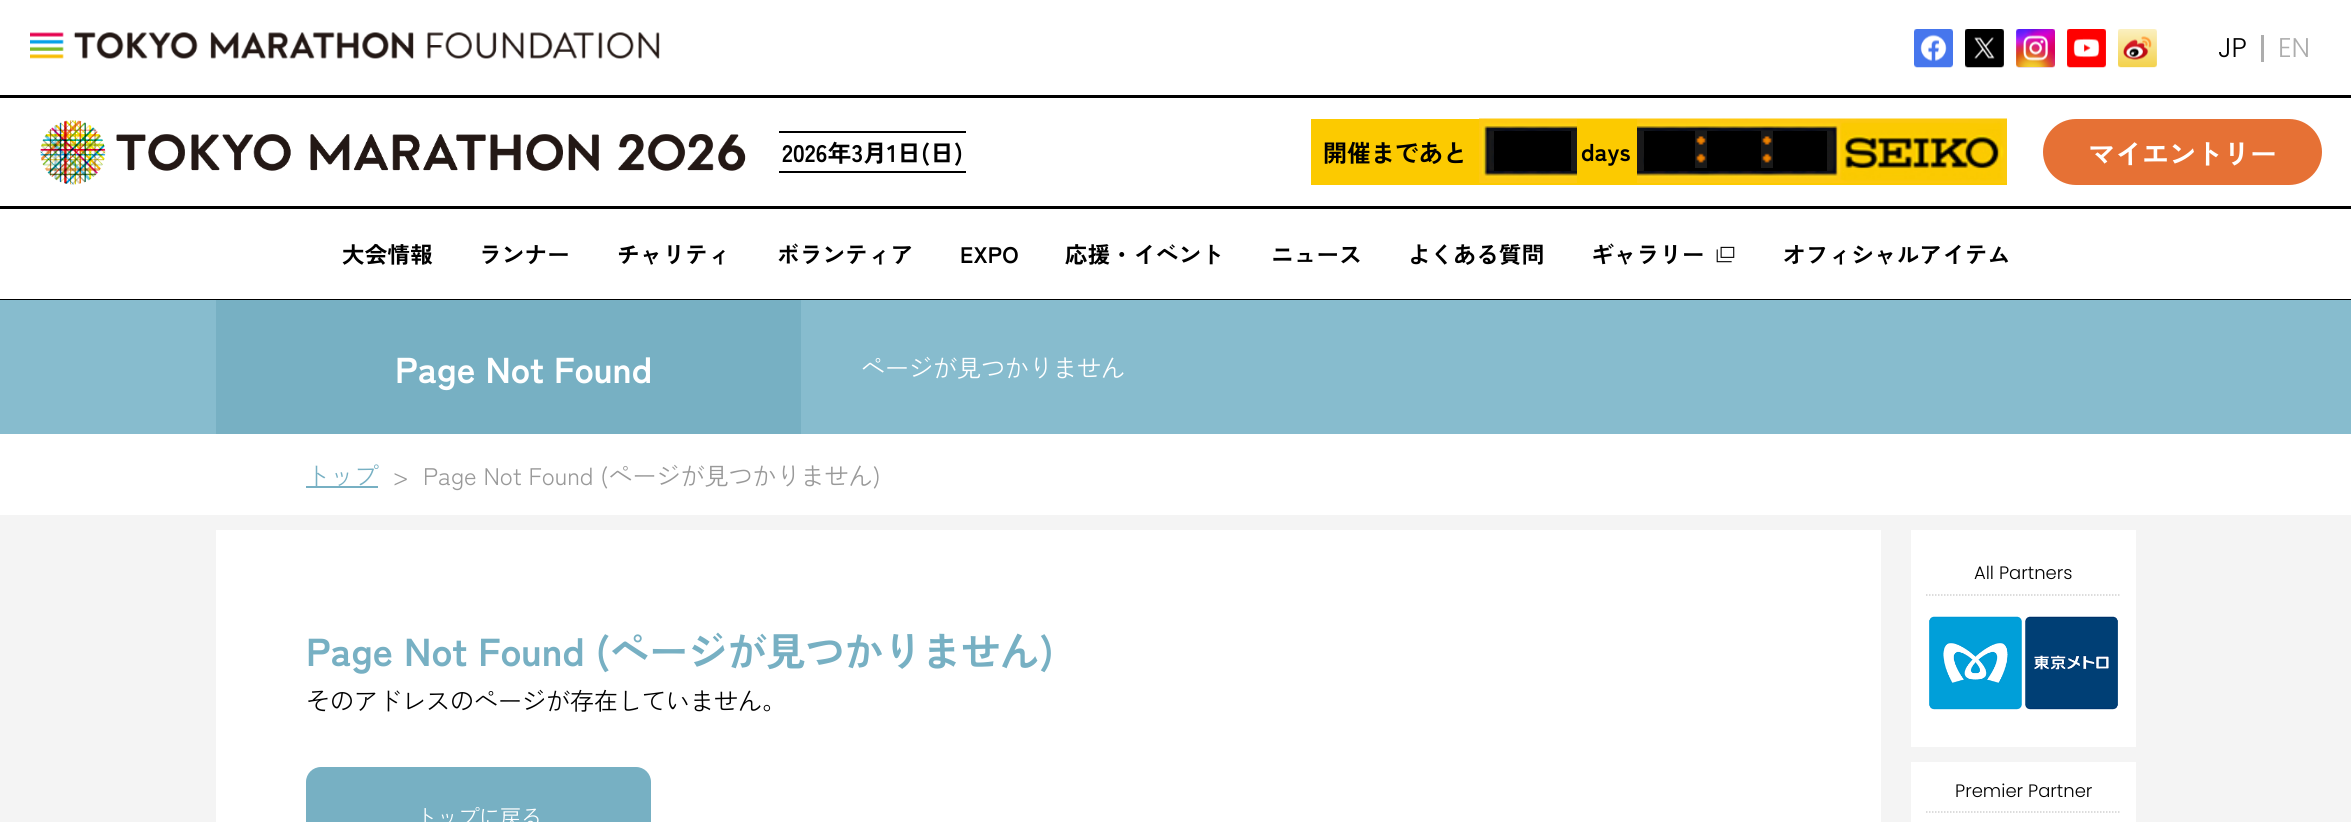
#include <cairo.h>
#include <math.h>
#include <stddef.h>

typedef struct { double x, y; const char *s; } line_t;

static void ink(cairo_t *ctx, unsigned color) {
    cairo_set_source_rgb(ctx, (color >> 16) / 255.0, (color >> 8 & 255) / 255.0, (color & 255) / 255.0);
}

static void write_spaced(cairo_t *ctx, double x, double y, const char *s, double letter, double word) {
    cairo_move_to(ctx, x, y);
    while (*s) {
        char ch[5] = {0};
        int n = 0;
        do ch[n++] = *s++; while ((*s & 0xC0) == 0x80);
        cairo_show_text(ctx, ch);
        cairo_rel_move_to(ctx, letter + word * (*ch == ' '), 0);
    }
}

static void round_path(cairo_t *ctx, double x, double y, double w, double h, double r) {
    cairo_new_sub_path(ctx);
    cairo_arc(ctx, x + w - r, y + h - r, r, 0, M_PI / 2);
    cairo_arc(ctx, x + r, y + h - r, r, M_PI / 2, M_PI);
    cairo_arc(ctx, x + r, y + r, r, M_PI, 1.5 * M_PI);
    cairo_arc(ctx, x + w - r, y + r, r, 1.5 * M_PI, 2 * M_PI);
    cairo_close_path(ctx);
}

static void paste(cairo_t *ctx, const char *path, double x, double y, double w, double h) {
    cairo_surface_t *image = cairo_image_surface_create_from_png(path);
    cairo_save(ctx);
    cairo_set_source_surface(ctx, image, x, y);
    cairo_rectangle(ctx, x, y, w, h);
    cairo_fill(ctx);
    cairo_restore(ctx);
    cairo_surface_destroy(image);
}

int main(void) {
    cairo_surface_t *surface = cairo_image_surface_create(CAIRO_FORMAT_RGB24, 2351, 822);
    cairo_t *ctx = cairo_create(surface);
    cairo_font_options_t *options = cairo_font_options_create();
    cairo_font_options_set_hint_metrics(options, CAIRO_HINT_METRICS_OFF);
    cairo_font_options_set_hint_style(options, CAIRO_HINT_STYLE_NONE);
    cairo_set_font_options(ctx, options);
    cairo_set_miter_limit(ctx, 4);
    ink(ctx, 0xF4F4F4);
    cairo_paint(ctx);
    ink(ctx, 0xFFFFFF);
    cairo_rectangle(ctx, 0, 0, 2351, 299);
    cairo_fill(ctx);
    paste(ctx, "media/1.png", 30, 32, 630, 27);
    paste(ctx, "media/2.png", 1914, 29, 39, 39);
    paste(ctx, "media/3.png", 1965, 29, 39, 39);
    paste(ctx, "media/4.png", 2016, 29, 39, 39);
    paste(ctx, "media/5.png", 2067, 29, 39, 39);
    paste(ctx, "media/6.png", 2118, 29, 39, 39);
    cairo_select_font_face(ctx, "Poppins Light", CAIRO_FONT_SLANT_NORMAL, CAIRO_FONT_WEIGHT_NORMAL);
    cairo_set_font_size(ctx, 27);
    ink(ctx, 0x000000);
    cairo_move_to(ctx, 2218, 57);
    cairo_show_text(ctx, "JP");
    ink(ctx, 0xADADAD);
    cairo_rectangle(ctx, 2261, 35, 3, 27);
    cairo_fill(ctx);
    cairo_move_to(ctx, 2278, 57);
    cairo_show_text(ctx, "EN");
    ink(ctx, 0x000000);
    cairo_rectangle(ctx, 0, 95, 2351, 3);
    cairo_fill(ctx);
    cairo_rectangle(ctx, 0, 206, 2351, 3);
    cairo_fill(ctx);
    paste(ctx, "media/7.png", 40, 120, 706, 65);
    cairo_rectangle(ctx, 779, 131, 187, 2);
    cairo_fill(ctx);
    cairo_rectangle(ctx, 779, 171, 187, 2);
    cairo_fill(ctx);
    cairo_select_font_face(ctx, "Zen Kaku Gothic Antique", CAIRO_FONT_SLANT_NORMAL, CAIRO_FONT_WEIGHT_BOLD);
    cairo_set_font_size(ctx, 24);
    cairo_move_to(ctx, 782, 162);
    cairo_show_text(ctx, "2026年3月1日(日)");
    ink(ctx, 0xFCCA00);
    cairo_rectangle(ctx, 1311, 119, 696, 66);
    cairo_fill(ctx);
    ink(ctx, 0x000000);
    cairo_move_to(ctx, 1323, 162);
    cairo_show_text(ctx, "開催まであと");
    paste(ctx, "media/8.png", 1479, 118, 528, 65);
    cairo_rectangle(ctx, 1494, 131, 77, 40);
    cairo_fill(ctx);
    cairo_rectangle(ctx, 1644, 131, 183, 40);
    cairo_fill(ctx);
    paste(ctx, "media/9.png", 1695, 130, 12, 38);
    paste(ctx, "media/10.png", 1761, 130, 12, 38);
    ink(ctx, 0x19191A);
    cairo_rectangle(ctx, 1572, 131, 71, 40);
    cairo_fill(ctx);
    ink(ctx, 0xFCCA00);
    cairo_rectangle(ctx, 1577, 119, 60, 64);
    cairo_fill(ctx);
    ink(ctx, 0x000000);
    cairo_move_to(ctx, 1581, 161);
    cairo_show_text(ctx, "days");
    ink(ctx, 0xE67135);
    round_path(ctx, 2044.5, 120.5, 276, 63, 31.5);
    cairo_fill_preserve(ctx);
    cairo_set_line_width(ctx, 3);
    cairo_stroke(ctx);
    cairo_set_font_size(ctx, 27);
    ink(ctx, 0xFFFFFF);
    cairo_move_to(ctx, 2088, 164);
    cairo_show_text(ctx, "マイエントリー");
    ink(ctx, 0x000000);
    cairo_rectangle(ctx, 0, 299, 2351, 1);
    cairo_fill(ctx);
    cairo_set_font_size(ctx, 22.5);
    {
        static const line_t items[] = {
            {342, 263, "大会情報"},
            {479, 263, "ランナー"},
            {617, 263, "チャリティ"},
            {777, 263, "ボランティア"},
            {960, 263, "EXPO"},
            {1065, 263, "応援・イベント"},
            {1271, 263, "ニュース"},
            {1408, 263, "よくある質問"},
            {1591, 263, "ギャラリー"},
        };
        for (size_t i = 0; i < sizeof items / sizeof *items; i++) {
            write_spaced(ctx, items[i].x, items[i].y, items[i].s, 0.25, 0);
        }
    }
    paste(ctx, "media/11.png", 1716, 246, 19, 17);
    write_spaced(ctx, 1783, 263, "オフィシャルアイテム", 0.25, 0);
    ink(ctx, 0x87BCCE);
    cairo_rectangle(ctx, 0, 300, 2351, 134);
    cairo_fill(ctx);
    ink(ctx, 0x77B0C3);
    cairo_rectangle(ctx, 216, 300, 585, 134);
    cairo_fill(ctx);
    cairo_set_font_size(ctx, 36);
    ink(ctx, 0xFFFFFF);
    cairo_move_to(ctx, 395, 383);
    cairo_show_text(ctx, "Page Not Found");
    cairo_select_font_face(ctx, "Zen Kaku Gothic Antique", CAIRO_FONT_SLANT_NORMAL, CAIRO_FONT_WEIGHT_NORMAL);
    cairo_set_font_size(ctx, 24);
    cairo_move_to(ctx, 861, 377);
    cairo_show_text(ctx, "ページが見つかりません");
    cairo_rectangle(ctx, 0, 434, 2351, 81);
    cairo_fill(ctx);
    ink(ctx, 0x77B0C3);
    cairo_rectangle(ctx, 306, 486, 72, 2);
    cairo_fill(ctx);
    cairo_move_to(ctx, 306, 485);
    cairo_show_text(ctx, "トップ");
    ink(ctx, 0x999999);
    cairo_move_to(ctx, 393, 485);
    cairo_show_text(ctx, ">");
    cairo_move_to(ctx, 423, 485);
    cairo_show_text(ctx, "Page Not Found (ページが見つかりません)");
    ink(ctx, 0xFFFFFF);
    cairo_rectangle(ctx, 216, 530, 1665, 292);
    cairo_fill(ctx);
    cairo_select_font_face(ctx, "Zen Kaku Gothic Antique", CAIRO_FONT_SLANT_NORMAL, CAIRO_FONT_WEIGHT_BOLD);
    cairo_set_font_size(ctx, 39);
    ink(ctx, 0x77B0C3);
    cairo_move_to(ctx, 306, 666);
    cairo_show_text(ctx, "Page Not Found (ページが見つかりません)");
    cairo_select_font_face(ctx, "Zen Kaku Gothic Antique", CAIRO_FONT_SLANT_NORMAL, CAIRO_FONT_WEIGHT_NORMAL);
    cairo_set_font_size(ctx, 24);
    ink(ctx, 0x000000);
    cairo_move_to(ctx, 306, 710);
    cairo_show_text(ctx, "そのアドレスのページが存在していません。");
    ink(ctx, 0x77B0C3);
    round_path(ctx, 306, 767, 345, 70, 15);
    cairo_fill(ctx);
    cairo_set_font_size(ctx, 21);
    ink(ctx, 0xFFFFFF);
    cairo_move_to(ctx, 416, 825);
    cairo_show_text(ctx, "トップに戻る");
    cairo_rectangle(ctx, 1911, 530, 225, 217);
    cairo_fill(ctx);
    cairo_new_path(ctx);
    cairo_move_to(ctx, 1926, 595);
    cairo_line_to(ctx, 2121, 595);
    ink(ctx, 0xD1D1D1);
    cairo_set_line_width(ctx, 1.5);
    cairo_set_dash(ctx, (double[]){1.5, 1.5}, 2, 0);
    cairo_stroke(ctx);
    cairo_select_font_face(ctx, "Poppins Light", CAIRO_FONT_SLANT_NORMAL, CAIRO_FONT_WEIGHT_NORMAL);
    cairo_set_font_size(ctx, 18);
    ink(ctx, 0x000000);
    cairo_move_to(ctx, 1974, 579);
    cairo_show_text(ctx, "All Partners");
    paste(ctx, "media/12.png", 1929, 616, 189, 94);
    ink(ctx, 0xFFFFFF);
    cairo_rectangle(ctx, 1911, 762, 225, 60);
    cairo_fill(ctx);
    cairo_new_path(ctx);
    cairo_move_to(ctx, 1926, 812);
    cairo_line_to(ctx, 2121, 812);
    ink(ctx, 0xD1D1D1);
    cairo_stroke(ctx);
    ink(ctx, 0x000000);
    cairo_move_to(ctx, 1955, 797);
    cairo_show_text(ctx, "Premier Partner");
    cairo_surface_write_to_png(surface, "image.png");
    cairo_font_options_destroy(options);
    cairo_destroy(ctx);
    cairo_surface_destroy(surface);
    return 0;
}
